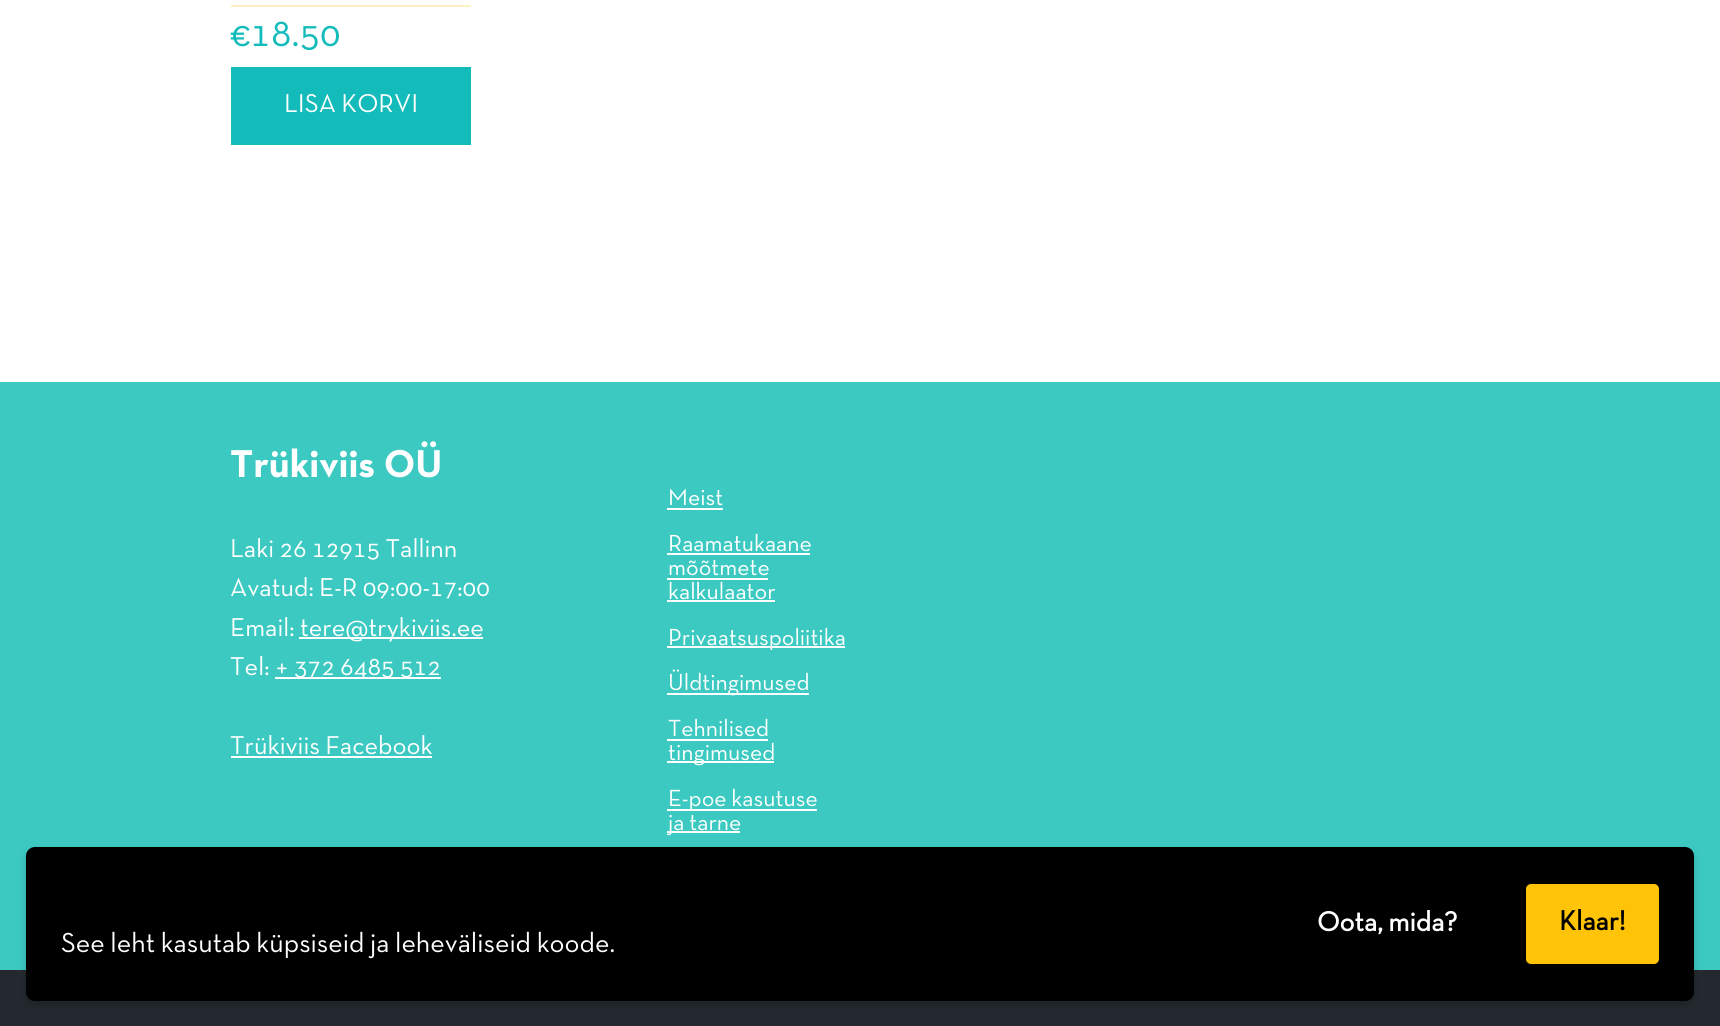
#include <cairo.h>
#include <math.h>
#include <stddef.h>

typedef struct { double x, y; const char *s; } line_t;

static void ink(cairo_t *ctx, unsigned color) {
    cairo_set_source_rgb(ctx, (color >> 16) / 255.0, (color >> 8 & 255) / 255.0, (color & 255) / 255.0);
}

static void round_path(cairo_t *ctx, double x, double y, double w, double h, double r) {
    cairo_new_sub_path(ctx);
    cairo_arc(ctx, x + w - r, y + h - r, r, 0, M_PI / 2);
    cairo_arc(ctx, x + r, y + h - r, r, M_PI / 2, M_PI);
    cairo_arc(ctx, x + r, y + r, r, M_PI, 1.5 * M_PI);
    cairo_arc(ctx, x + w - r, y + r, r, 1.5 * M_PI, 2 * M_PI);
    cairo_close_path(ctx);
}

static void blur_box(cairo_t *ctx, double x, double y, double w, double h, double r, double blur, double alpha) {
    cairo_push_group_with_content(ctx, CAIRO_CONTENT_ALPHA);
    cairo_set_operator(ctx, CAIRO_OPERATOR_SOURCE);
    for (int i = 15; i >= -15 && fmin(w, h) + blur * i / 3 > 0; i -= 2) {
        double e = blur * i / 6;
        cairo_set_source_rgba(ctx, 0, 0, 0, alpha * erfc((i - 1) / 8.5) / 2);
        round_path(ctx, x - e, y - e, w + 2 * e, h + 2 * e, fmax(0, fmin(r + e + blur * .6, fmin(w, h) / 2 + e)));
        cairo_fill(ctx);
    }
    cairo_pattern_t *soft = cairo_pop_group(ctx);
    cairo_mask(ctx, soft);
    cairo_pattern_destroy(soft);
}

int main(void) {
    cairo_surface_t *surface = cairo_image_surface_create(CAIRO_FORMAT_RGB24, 1720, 1026);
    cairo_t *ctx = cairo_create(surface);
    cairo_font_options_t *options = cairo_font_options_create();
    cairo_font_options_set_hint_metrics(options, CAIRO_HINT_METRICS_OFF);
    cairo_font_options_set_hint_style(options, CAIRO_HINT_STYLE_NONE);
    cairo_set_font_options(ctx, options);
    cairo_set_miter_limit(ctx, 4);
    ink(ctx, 0xFFFFFF);
    cairo_paint(ctx);
    ink(ctx, 0xFDF1C2);
    cairo_rectangle(ctx, 231, 5, 240, 2);
    cairo_fill(ctx);
    cairo_select_font_face(ctx, "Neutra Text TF", CAIRO_FONT_SLANT_NORMAL, CAIRO_FONT_WEIGHT_NORMAL);
    cairo_set_font_size(ctx, 39.5);
    ink(ctx, 0x14BBBB);
    cairo_move_to(ctx, 230, 46);
    cairo_show_text(ctx, "€18.50");
    cairo_rectangle(ctx, 231, 67, 240, 78);
    cairo_fill(ctx);
    cairo_set_font_size(ctx, 26.25);
    ink(ctx, 0xFFFFFF);
    cairo_move_to(ctx, 284, 112);
    cairo_show_text(ctx, "LISA KORVI");
    ink(ctx, 0x3CC9C1);
    cairo_rectangle(ctx, 0, 382, 1720, 588);
    cairo_fill(ctx);
    cairo_select_font_face(ctx, "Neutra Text", CAIRO_FONT_SLANT_NORMAL, CAIRO_FONT_WEIGHT_BOLD);
    cairo_set_font_size(ctx, 39.5);
    ink(ctx, 0xFFFFFF);
    cairo_move_to(ctx, 230, 477);
    cairo_show_text(ctx, "Trükiviis OÜ");
    cairo_select_font_face(ctx, "Neutra Text TF", CAIRO_FONT_SLANT_NORMAL, CAIRO_FONT_WEIGHT_NORMAL);
    cairo_set_font_size(ctx, 26.25);
    {
        static const line_t items[] = {
            {230, 557, "Laki 26 12915 Tallinn"},
            {230, 596, "Avatud: E-R 09:00-17:00"},
            {230, 636, "Email:"},
        };
        for (size_t i = 0; i < sizeof items / sizeof *items; i++) {
            cairo_move_to(ctx, items[i].x, items[i].y);
            cairo_show_text(ctx, items[i].s);
        }
    }
    cairo_rectangle(ctx, 299, 637, 184, 2);
    cairo_fill(ctx);
    cairo_move_to(ctx, 300, 636);
    cairo_show_text(ctx, "tere@trykiviis.ee");
    cairo_move_to(ctx, 230, 675);
    cairo_show_text(ctx, "Tel:");
    cairo_rectangle(ctx, 275, 677, 166, 2);
    cairo_fill(ctx);
    cairo_move_to(ctx, 275, 675);
    cairo_show_text(ctx, "+ 372 6485 512");
    cairo_move_to(ctx, 230, 754);
    cairo_show_text(ctx, "Trükiviis Facebook");
    cairo_rectangle(ctx, 231, 756, 201, 2);
    cairo_fill(ctx);
    cairo_set_font_size(ctx, 23.75);
    cairo_move_to(ctx, 668, 505);
    cairo_show_text(ctx, "Meist");
    cairo_rectangle(ctx, 667, 508, 56, 2);
    cairo_fill(ctx);
    cairo_move_to(ctx, 668, 551);
    cairo_show_text(ctx, "Raamatukaane");
    cairo_rectangle(ctx, 667, 553, 143, 2);
    cairo_fill(ctx);
    cairo_move_to(ctx, 668, 575);
    cairo_show_text(ctx, "mõõtmete");
    cairo_rectangle(ctx, 667, 578, 101, 2);
    cairo_fill(ctx);
    cairo_move_to(ctx, 668, 599);
    cairo_show_text(ctx, "kalkulaator");
    cairo_rectangle(ctx, 667, 600, 108, 2);
    cairo_fill(ctx);
    cairo_rectangle(ctx, 667, 646, 178, 2);
    cairo_fill(ctx);
    cairo_move_to(ctx, 668, 645);
    cairo_show_text(ctx, "Privaatsuspoliitika");
    cairo_rectangle(ctx, 667, 693, 142, 2);
    cairo_fill(ctx);
    cairo_move_to(ctx, 668, 690);
    cairo_show_text(ctx, "Üldtingimused");
    cairo_move_to(ctx, 668, 736);
    cairo_show_text(ctx, "Tehnilised");
    cairo_rectangle(ctx, 667, 739, 101, 2);
    cairo_fill(ctx);
    cairo_rectangle(ctx, 667, 761, 107, 2);
    cairo_fill(ctx);
    cairo_move_to(ctx, 668, 760);
    cairo_show_text(ctx, "tingimused");
    cairo_rectangle(ctx, 667, 809, 150, 2);
    cairo_fill(ctx);
    cairo_move_to(ctx, 668, 806);
    cairo_show_text(ctx, "E-poe kasutuse");
    cairo_rectangle(ctx, 667, 831, 73, 2);
    cairo_fill(ctx);
    cairo_move_to(ctx, 668, 830);
    cairo_show_text(ctx, "ja tarne");
    ink(ctx, 0x23292E);
    cairo_rectangle(ctx, 0, 970, 1720, 56);
    cairo_fill(ctx);
    ink(ctx, 0x000000);
    blur_box(ctx, 26, 851, 1668, 154, 9, 3.5, 0.2);
    ink(ctx, 0x000000);
    round_path(ctx, 26, 847, 1668, 154, 9);
    cairo_fill(ctx);
    cairo_select_font_face(ctx, "Neutra Text TF", CAIRO_FONT_SLANT_NORMAL, CAIRO_FONT_WEIGHT_BOLD);
    cairo_set_font_size(ctx, 28);
    ink(ctx, 0xFFFFFF);
    cairo_move_to(ctx, 1317, 931);
    cairo_show_text(ctx, "Oota, mida?");
    ink(ctx, 0xFFC408);
    round_path(ctx, 1527, 885, 131, 78, 4);
    cairo_fill_preserve(ctx);
    cairo_stroke(ctx);
    ink(ctx, 0x000000);
    cairo_move_to(ctx, 1559, 930);
    cairo_show_text(ctx, "Klaar!");
    cairo_select_font_face(ctx, "Neutra Text TF", CAIRO_FONT_SLANT_NORMAL, CAIRO_FONT_WEIGHT_NORMAL);
    ink(ctx, 0xFFFFFF);
    cairo_move_to(ctx, 61, 952);
    cairo_show_text(ctx, "See leht kasutab küpsiseid ja leheväliseid koode.");
    cairo_surface_write_to_png(surface, "image.png");
    cairo_font_options_destroy(options);
    cairo_destroy(ctx);
    cairo_surface_destroy(surface);
    return 0;
}
